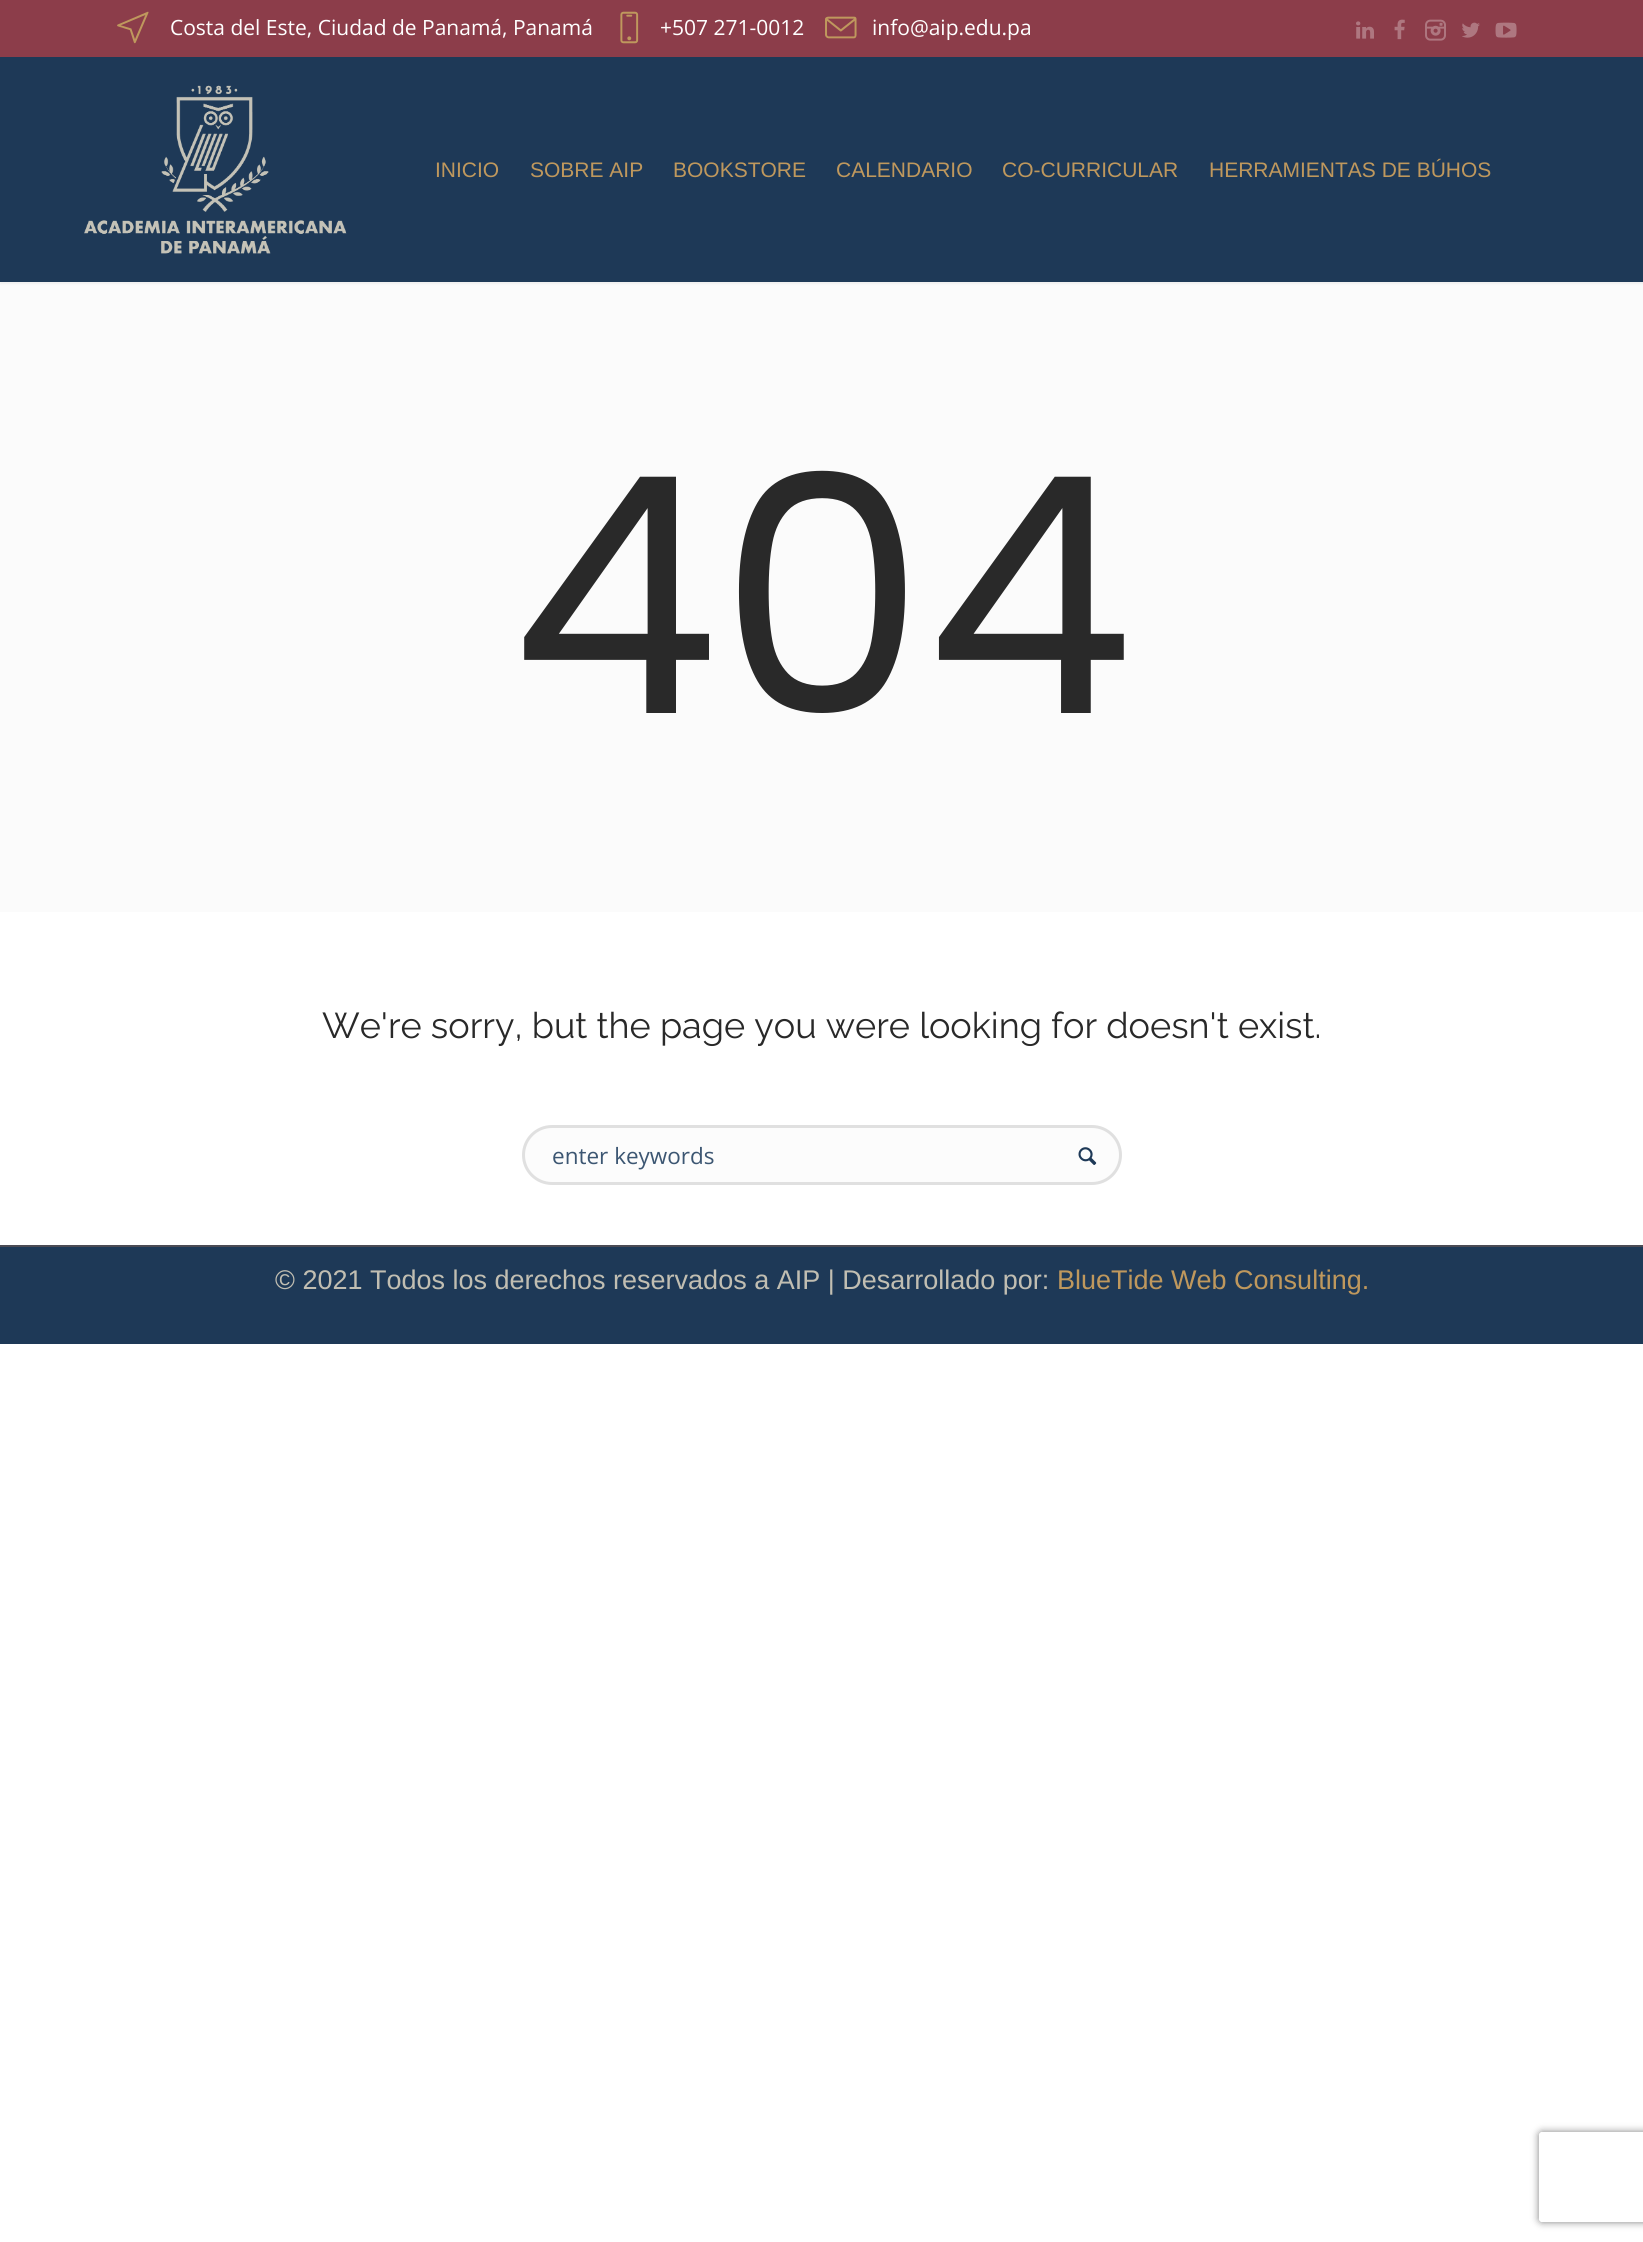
#include <cairo.h>
#include <math.h>
#include <stddef.h>

typedef struct { double x, y; const char *s; } line_t;

static void ink(cairo_t *ctx, unsigned color) {
    cairo_set_source_rgb(ctx, (color >> 16) / 255.0, (color >> 8 & 255) / 255.0, (color & 255) / 255.0);
}

static void round_path(cairo_t *ctx, double x, double y, double w, double h, double r) {
    cairo_new_sub_path(ctx);
    cairo_arc(ctx, x + w - r, y + h - r, r, 0, M_PI / 2);
    cairo_arc(ctx, x + r, y + h - r, r, M_PI / 2, M_PI);
    cairo_arc(ctx, x + r, y + r, r, M_PI, 1.5 * M_PI);
    cairo_arc(ctx, x + w - r, y + r, r, 1.5 * M_PI, 2 * M_PI);
    cairo_close_path(ctx);
}

static void blur_box(cairo_t *ctx, double x, double y, double w, double h, double r, double blur, double alpha) {
    cairo_push_group_with_content(ctx, CAIRO_CONTENT_ALPHA);
    cairo_set_operator(ctx, CAIRO_OPERATOR_SOURCE);
    for (int i = 15; i >= -15 && fmin(w, h) + blur * i / 3 > 0; i -= 2) {
        double e = blur * i / 6;
        cairo_set_source_rgba(ctx, 0, 0, 0, alpha * erfc((i - 1) / 8.5) / 2);
        round_path(ctx, x - e, y - e, w + 2 * e, h + 2 * e, fmax(0, fmin(r + e + blur * .6, fmin(w, h) / 2 + e)));
        cairo_fill(ctx);
    }
    cairo_pattern_t *soft = cairo_pop_group(ctx);
    cairo_mask(ctx, soft);
    cairo_pattern_destroy(soft);
}

static void paste(cairo_t *ctx, const char *path, double x, double y, double w, double h) {
    cairo_surface_t *image = cairo_image_surface_create_from_png(path);
    cairo_save(ctx);
    cairo_set_source_surface(ctx, image, x, y);
    cairo_rectangle(ctx, x, y, w, h);
    cairo_fill(ctx);
    cairo_restore(ctx);
    cairo_surface_destroy(image);
}

int main(void) {
    cairo_surface_t *surface = cairo_image_surface_create(CAIRO_FORMAT_RGB24, 1643, 2242);
    cairo_t *ctx = cairo_create(surface);
    cairo_font_options_t *options = cairo_font_options_create();
    cairo_font_options_set_hint_metrics(options, CAIRO_HINT_METRICS_OFF);
    cairo_font_options_set_hint_style(options, CAIRO_HINT_STYLE_NONE);
    cairo_set_font_options(ctx, options);
    cairo_set_miter_limit(ctx, 4);
    ink(ctx, 0xFFFFFF);
    cairo_paint(ctx);
    ink(ctx, 0xFBFBFB);
    cairo_rectangle(ctx, 0, 282, 1643, 630);
    cairo_fill(ctx);
    ink(ctx, 0x000000);
    blur_box(ctx, 0, 2, 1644, 282, 0, 1, 0.05);
    ink(ctx, 0x8C3D4A);
    cairo_rectangle(ctx, 0, 0, 1643, 57);
    cairo_fill(ctx);
    paste(ctx, "media/1.png", 117, 11, 32, 33);
    cairo_select_font_face(ctx, "Open Sans", CAIRO_FONT_SLANT_NORMAL, CAIRO_FONT_WEIGHT_NORMAL);
    cairo_set_font_size(ctx, 21);
    ink(ctx, 0xFFFFFF);
    cairo_move_to(ctx, 170, 35);
    cairo_show_text(ctx, "Costa del Este, Ciudad de Panamá, Panamá");
    paste(ctx, "media/2.png", 620, 11, 19, 33);
    cairo_move_to(ctx, 660, 35);
    cairo_show_text(ctx, "+507 271-0012");
    paste(ctx, "media/3.png", 825, 16, 32, 23);
    cairo_move_to(ctx, 872, 35);
    cairo_show_text(ctx, "info@aip.edu.pa");
    paste(ctx, "media/4.png", 1356, 21, 18, 18);
    paste(ctx, "media/5.png", 1394, 19, 11, 21);
    paste(ctx, "media/6.png", 1425, 19, 21, 22);
    paste(ctx, "media/7.png", 1462, 22, 18, 16);
    paste(ctx, "media/8.png", 1495, 22, 22, 16);
    ink(ctx, 0x1E3957);
    cairo_rectangle(ctx, 0, 57, 1643, 225);
    cairo_fill(ctx);
    paste(ctx, "media/9.png", 84, 85, 263, 169);
    cairo_select_font_face(ctx, "Liberation Sans", CAIRO_FONT_SLANT_NORMAL, CAIRO_FONT_WEIGHT_NORMAL);
    ink(ctx, 0xBF985D);
    {
        static const line_t items[] = {
            {435, 177, "INICIO"},
            {530, 177, "SOBRE AIP"},
            {673, 177, "BOOKSTORE"},
            {836, 177, "CALENDARIO"},
            {1002, 177, "CO-CURRICULAR"},
            {1209, 177, "HERRAMIENTAS DE BÚHOS"},
        };
        for (size_t i = 0; i < sizeof items / sizeof *items; i++) {
            cairo_move_to(ctx, items[i].x, items[i].y);
            cairo_show_text(ctx, items[i].s);
        }
    }
    cairo_select_font_face(ctx, "Poppins", CAIRO_FONT_SLANT_NORMAL, CAIRO_FONT_WEIGHT_NORMAL);
    cairo_set_font_size(ctx, 330);
    ink(ctx, 0x292929);
    cairo_move_to(ctx, 511, 713);
    cairo_show_text(ctx, "404");
    cairo_select_font_face(ctx, "Raleway", CAIRO_FONT_SLANT_NORMAL, CAIRO_FONT_WEIGHT_NORMAL);
    cairo_set_font_size(ctx, 36);
    cairo_move_to(ctx, 322, 1038);
    cairo_show_text(ctx, "We're sorry, but the page you were looking for doesn't exist.");
    ink(ctx, 0xFCFCFC);
    round_path(ctx, 523.5, 1126.5, 597, 57, 28.5);
    cairo_fill_preserve(ctx);
    ink(ctx, 0xE0E0E0);
    cairo_set_line_width(ctx, 3);
    cairo_stroke(ctx);
    cairo_select_font_face(ctx, "Open Sans", CAIRO_FONT_SLANT_NORMAL, CAIRO_FONT_WEIGHT_NORMAL);
    cairo_set_font_size(ctx, 22.5);
    ink(ctx, 0x3C5672);
    cairo_move_to(ctx, 552, 1164);
    cairo_show_text(ctx, "enter keywords");
    paste(ctx, "media/10.png", 1078, 1147, 19, 18);
    ink(ctx, 0x1E3957);
    cairo_rectangle(ctx, 0, 1247, 1643, 97);
    cairo_fill(ctx);
    ink(ctx, 0x4B4B54);
    cairo_rectangle(ctx, 0, 1245, 1643, 2);
    cairo_fill(ctx);
    cairo_select_font_face(ctx, "Liberation Sans", CAIRO_FONT_SLANT_NORMAL, CAIRO_FONT_WEIGHT_NORMAL);
    cairo_set_font_size(ctx, 27);
    ink(ctx, 0xC1BEB2);
    cairo_move_to(ctx, 275, 1289);
    cairo_show_text(ctx, "© 2021 Todos los derechos reservados a AIP | Desarrollado por:");
    ink(ctx, 0xBF985D);
    cairo_move_to(ctx, 1057, 1289);
    cairo_show_text(ctx, "BlueTide Web Consulting.");
    cairo_save(ctx);
    cairo_set_fill_rule(ctx, CAIRO_FILL_RULE_EVEN_ODD);
    cairo_new_path(ctx);
    cairo_move_to(ctx, 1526, 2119);
    cairo_line_to(ctx, 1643, 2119);
    cairo_line_to(ctx, 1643, 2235);
    cairo_line_to(ctx, 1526, 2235);
    cairo_close_path(ctx);
    cairo_move_to(ctx, 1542, 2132);
    cairo_line_to(ctx, 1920, 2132);
    cairo_curve_to(ctx, 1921.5, 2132, 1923, 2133.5, 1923, 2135);
    cairo_line_to(ctx, 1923, 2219);
    cairo_curve_to(ctx, 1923, 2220.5, 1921.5, 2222, 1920, 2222);
    cairo_line_to(ctx, 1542, 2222);
    cairo_curve_to(ctx, 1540.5, 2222, 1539, 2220.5, 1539, 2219);
    cairo_line_to(ctx, 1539, 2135);
    cairo_curve_to(ctx, 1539, 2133.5, 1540.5, 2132, 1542, 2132);
    cairo_close_path(ctx);
    cairo_clip(ctx);
    ink(ctx, 0x808080);
    blur_box(ctx, 1539, 2132, 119, 90, 3, 4, 1);
    cairo_restore(ctx);
    cairo_surface_write_to_png(surface, "image.png");
    cairo_font_options_destroy(options);
    cairo_destroy(ctx);
    cairo_surface_destroy(surface);
    return 0;
}
